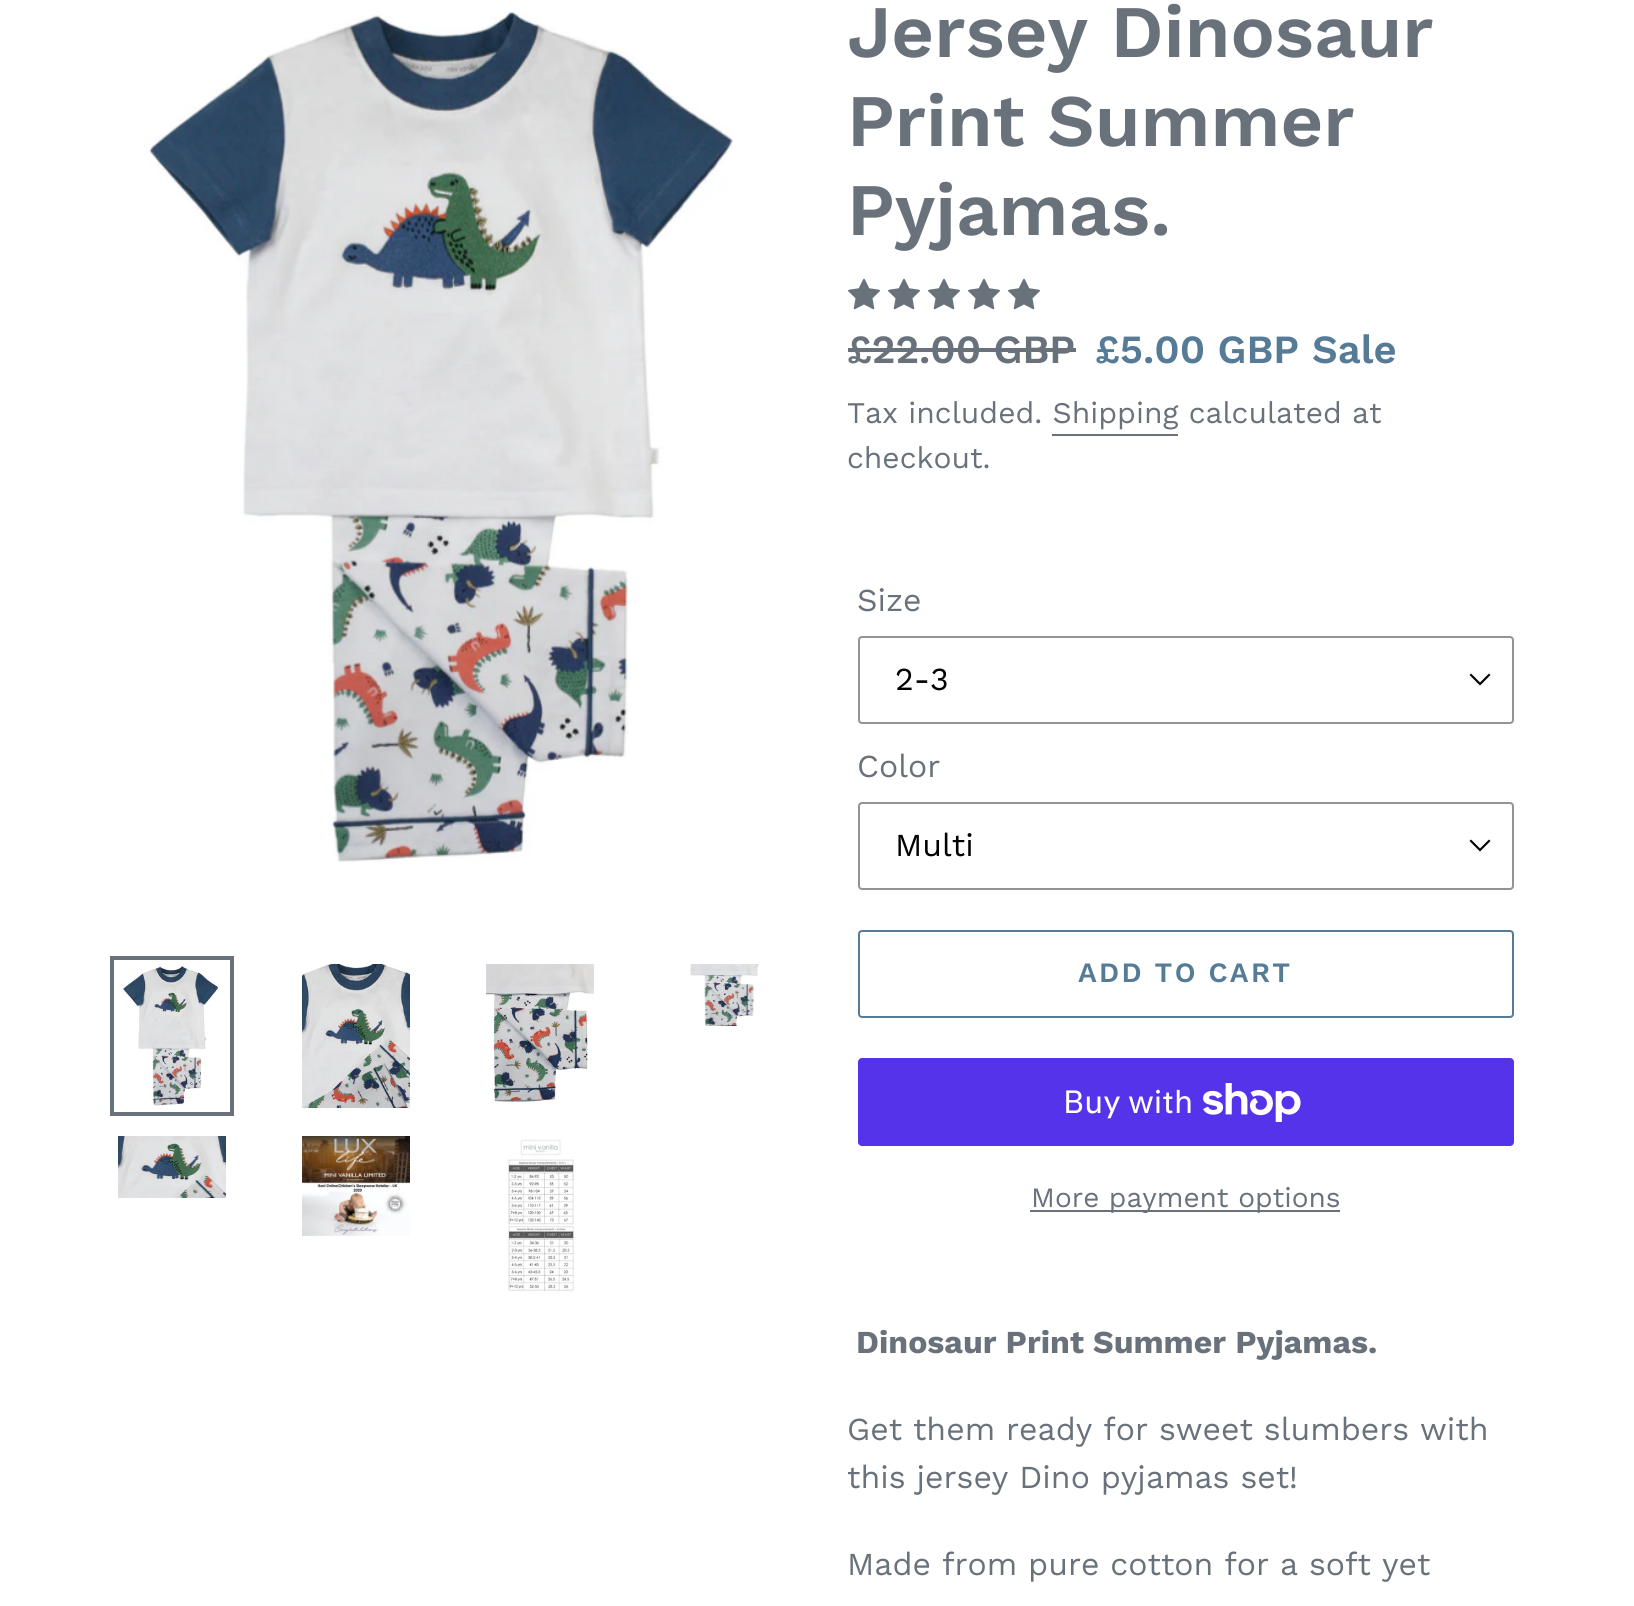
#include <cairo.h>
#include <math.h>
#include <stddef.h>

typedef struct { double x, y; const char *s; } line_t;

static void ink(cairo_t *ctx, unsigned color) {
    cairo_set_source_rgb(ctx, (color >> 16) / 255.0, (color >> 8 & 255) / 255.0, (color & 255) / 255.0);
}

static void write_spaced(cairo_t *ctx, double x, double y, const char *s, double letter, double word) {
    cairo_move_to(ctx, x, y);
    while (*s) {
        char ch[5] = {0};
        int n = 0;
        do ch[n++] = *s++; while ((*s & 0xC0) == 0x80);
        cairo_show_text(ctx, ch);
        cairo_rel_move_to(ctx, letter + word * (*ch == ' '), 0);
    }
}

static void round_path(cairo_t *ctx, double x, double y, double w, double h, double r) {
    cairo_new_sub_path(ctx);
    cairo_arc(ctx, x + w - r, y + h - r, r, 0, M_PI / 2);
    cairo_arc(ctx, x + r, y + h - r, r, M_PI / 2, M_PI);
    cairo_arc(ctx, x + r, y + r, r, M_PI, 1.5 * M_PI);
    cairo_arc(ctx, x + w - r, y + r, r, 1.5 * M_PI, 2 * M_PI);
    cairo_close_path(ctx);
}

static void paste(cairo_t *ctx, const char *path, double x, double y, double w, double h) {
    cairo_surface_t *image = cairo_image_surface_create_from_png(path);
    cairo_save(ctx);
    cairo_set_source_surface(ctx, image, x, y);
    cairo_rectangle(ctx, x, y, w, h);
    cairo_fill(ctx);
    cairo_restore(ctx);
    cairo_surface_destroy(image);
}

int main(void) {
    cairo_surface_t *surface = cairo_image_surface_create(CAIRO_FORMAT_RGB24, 1634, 1606);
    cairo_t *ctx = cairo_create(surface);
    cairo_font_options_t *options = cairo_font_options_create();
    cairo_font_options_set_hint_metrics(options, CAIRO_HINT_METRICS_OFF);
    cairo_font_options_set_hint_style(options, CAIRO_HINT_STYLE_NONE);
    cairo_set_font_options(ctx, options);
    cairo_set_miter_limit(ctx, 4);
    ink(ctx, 0xFFFFFF);
    cairo_paint(ctx);
    paste(ctx, "media/1.png", 149, 11, 585, 851);
    cairo_rectangle(ctx, 112, 958, 120, 156);
    ink(ctx, 0x69727B);
    cairo_set_line_width(ctx, 4);
    cairo_stroke(ctx);
    paste(ctx, "media/2.png", 123, 964, 95, 142);
    paste(ctx, "media/3.png", 302, 964, 108, 144);
    paste(ctx, "media/4.png", 486, 964, 108, 139);
    paste(ctx, "media/5.png", 690, 964, 69, 62);
    paste(ctx, "media/6.png", 118, 1136, 108, 62);
    paste(ctx, "media/7.png", 302, 1136, 108, 100);
    paste(ctx, "media/8.png", 507, 1139, 67, 153);
    cairo_select_font_face(ctx, "Work Sans SemiBold", CAIRO_FONT_SLANT_NORMAL, CAIRO_FONT_WEIGHT_NORMAL);
    cairo_set_font_size(ctx, 74);
    {
        static const line_t items[] = {
            {847, 57, "Jersey Dinosaur"},
            {847, 146, "Print Summer"},
            {847, 235, "Pyjamas."},
        };
        for (size_t i = 0; i < sizeof items / sizeof *items; i++) {
            cairo_move_to(ctx, items[i].x, items[i].y);
            cairo_show_text(ctx, items[i].s);
        }
    }
    paste(ctx, "media/9.png", 848, 278, 32, 32);
    paste(ctx, "media/9.png", 888, 278, 32, 32);
    paste(ctx, "media/9.png", 928, 278, 32, 32);
    paste(ctx, "media/9.png", 968, 278, 32, 32);
    paste(ctx, "media/9.png", 1008, 278, 32, 32);
    cairo_set_font_size(ctx, 40);
    cairo_move_to(ctx, 847, 363);
    cairo_show_text(ctx, "£22.00 GBP");
    cairo_rectangle(ctx, 848, 348, 228, 4);
    cairo_fill(ctx);
    ink(ctx, 0x557B97);
    cairo_move_to(ctx, 1095, 363);
    cairo_show_text(ctx, "£5.00 GBP");
    cairo_move_to(ctx, 1312, 363);
    cairo_show_text(ctx, "Sale");
    cairo_select_font_face(ctx, "Work Sans", CAIRO_FONT_SLANT_NORMAL, CAIRO_FONT_WEIGHT_NORMAL);
    cairo_set_font_size(ctx, 30);
    ink(ctx, 0x69727B);
    cairo_move_to(ctx, 847, 423);
    cairo_show_text(ctx, "Tax included. Shipping calculated at");
    cairo_rectangle(ctx, 1052, 434, 126, 2);
    cairo_fill(ctx);
    cairo_move_to(ctx, 847, 468);
    cairo_show_text(ctx, "checkout.");
    cairo_set_font_size(ctx, 32);
    cairo_move_to(ctx, 857, 611);
    cairo_show_text(ctx, "Size");
    ink(ctx, 0x000000);
    cairo_new_path(ctx);
    cairo_move_to(ctx, 1480, 685.5);
    cairo_line_to(ctx, 1469.5, 675);
    cairo_line_to(ctx, 1471, 673.5);
    cairo_line_to(ctx, 1480, 682.5);
    cairo_line_to(ctx, 1489, 673.5);
    cairo_line_to(ctx, 1490.5, 675);
    cairo_close_path(ctx);
    cairo_fill(ctx);
    round_path(ctx, 859, 637, 654, 86, 3);
    ink(ctx, 0x949494);
    cairo_set_line_width(ctx, 2);
    cairo_stroke(ctx);
    ink(ctx, 0x000000);
    cairo_move_to(ctx, 895, 690);
    cairo_show_text(ctx, "2-3");
    ink(ctx, 0x69727B);
    cairo_move_to(ctx, 857, 777);
    cairo_show_text(ctx, "Color");
    ink(ctx, 0x000000);
    cairo_new_path(ctx);
    cairo_move_to(ctx, 1480, 851.5);
    cairo_line_to(ctx, 1469.5, 841);
    cairo_line_to(ctx, 1471, 839.5);
    cairo_line_to(ctx, 1480, 848.5);
    cairo_line_to(ctx, 1489, 839.5);
    cairo_line_to(ctx, 1490.5, 841);
    cairo_close_path(ctx);
    cairo_fill(ctx);
    round_path(ctx, 859, 803, 654, 86, 3);
    ink(ctx, 0x949494);
    cairo_stroke(ctx);
    ink(ctx, 0x000000);
    cairo_move_to(ctx, 895, 856);
    cairo_show_text(ctx, "Multi");
    round_path(ctx, 859, 931, 654, 86, 3);
    ink(ctx, 0x557B97);
    cairo_stroke(ctx);
    cairo_select_font_face(ctx, "Work Sans SemiBold", CAIRO_FONT_SLANT_NORMAL, CAIRO_FONT_WEIGHT_NORMAL);
    cairo_set_font_size(ctx, 28);
    write_spaced(ctx, 1078, 982, "ADD TO CART", 2.25, 0);
    ink(ctx, 0x5433EB);
    round_path(ctx, 858, 1058, 656, 88, 4);
    cairo_fill(ctx);
    cairo_select_font_face(ctx, "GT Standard", CAIRO_FONT_SLANT_NORMAL, CAIRO_FONT_WEIGHT_NORMAL);
    cairo_set_font_size(ctx, 32);
    ink(ctx, 0xFFFFFF);
    cairo_move_to(ctx, 1063, 1113);
    cairo_show_text(ctx, "Buy with");
    paste(ctx, "media/10.png", 1203, 1083, 98, 39);
    ink(ctx, 0x69727B);
    cairo_rectangle(ctx, 1030, 1210, 310, 2);
    cairo_fill(ctx);
    cairo_select_font_face(ctx, "Work Sans", CAIRO_FONT_SLANT_NORMAL, CAIRO_FONT_WEIGHT_NORMAL);
    cairo_set_font_size(ctx, 28);
    cairo_move_to(ctx, 1031, 1207);
    cairo_show_text(ctx, "More payment options");
    cairo_select_font_face(ctx, "Work Sans", CAIRO_FONT_SLANT_NORMAL, CAIRO_FONT_WEIGHT_BOLD);
    cairo_set_font_size(ctx, 32);
    cairo_move_to(ctx, 856, 1353);
    cairo_show_text(ctx, "Dinosaur Print Summer Pyjamas.");
    cairo_select_font_face(ctx, "Work Sans", CAIRO_FONT_SLANT_NORMAL, CAIRO_FONT_WEIGHT_NORMAL);
    {
        static const line_t items[] = {
            {847, 1440, "Get them ready for sweet slumbers with"},
            {847, 1488, "this jersey Dino pyjamas set!"},
            {847, 1575, "Made from pure cotton for a soft yet"},
        };
        for (size_t i = 0; i < sizeof items / sizeof *items; i++) {
            cairo_move_to(ctx, items[i].x, items[i].y);
            cairo_show_text(ctx, items[i].s);
        }
    }
    cairo_surface_write_to_png(surface, "image.png");
    cairo_font_options_destroy(options);
    cairo_destroy(ctx);
    cairo_surface_destroy(surface);
    return 0;
}
